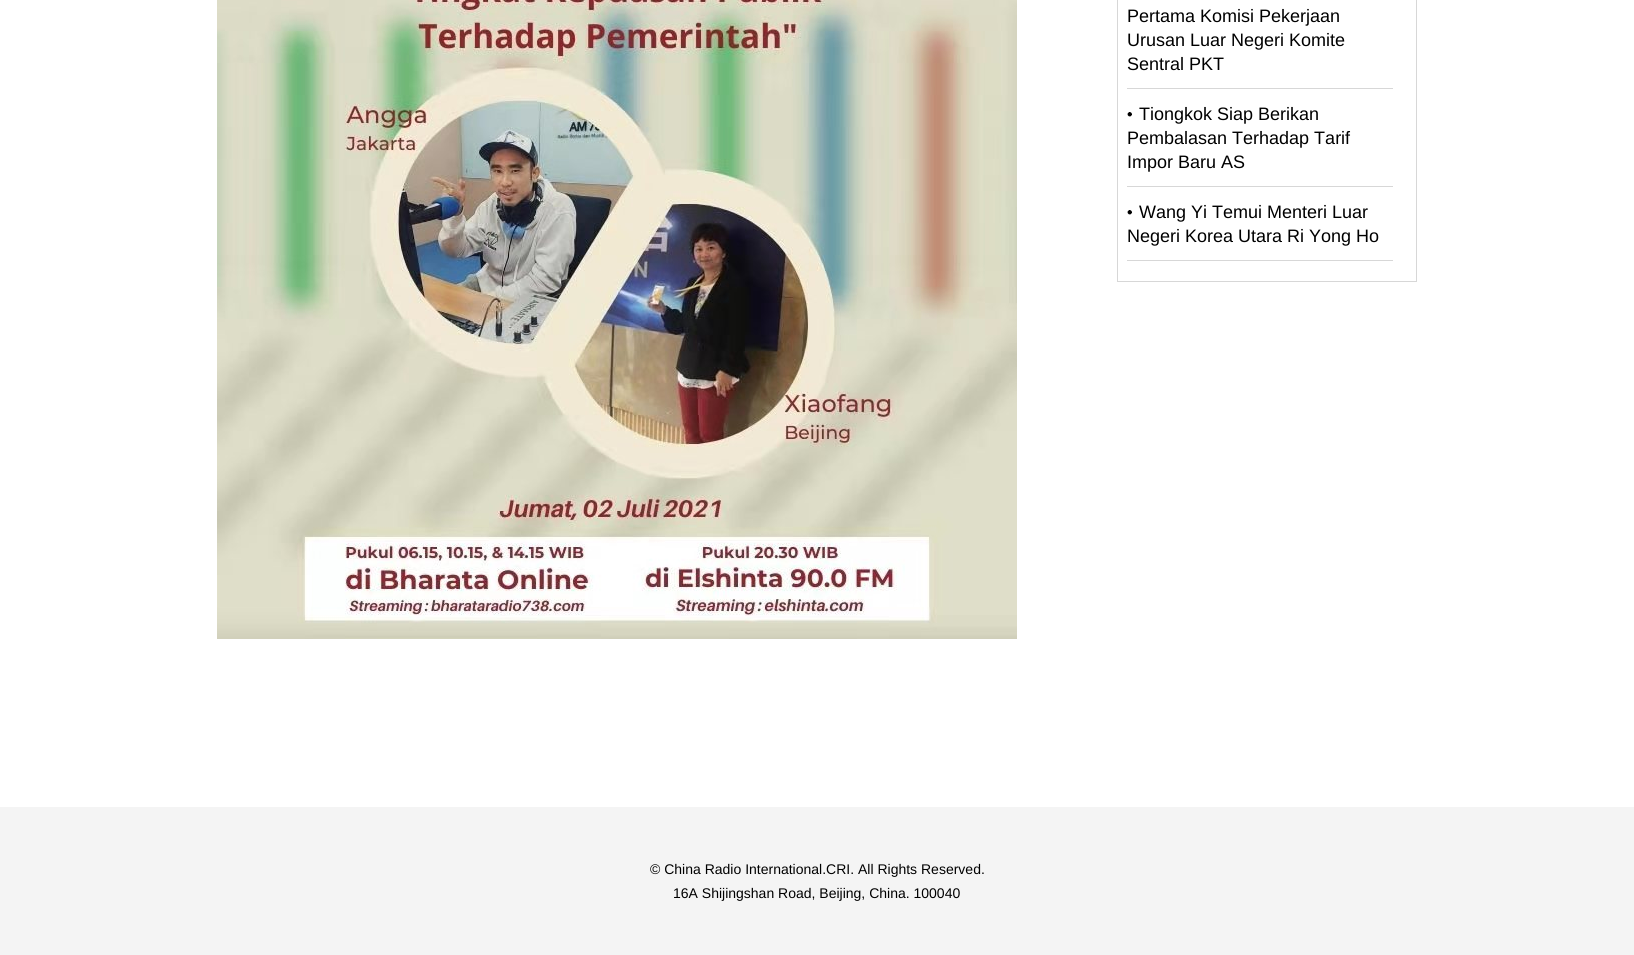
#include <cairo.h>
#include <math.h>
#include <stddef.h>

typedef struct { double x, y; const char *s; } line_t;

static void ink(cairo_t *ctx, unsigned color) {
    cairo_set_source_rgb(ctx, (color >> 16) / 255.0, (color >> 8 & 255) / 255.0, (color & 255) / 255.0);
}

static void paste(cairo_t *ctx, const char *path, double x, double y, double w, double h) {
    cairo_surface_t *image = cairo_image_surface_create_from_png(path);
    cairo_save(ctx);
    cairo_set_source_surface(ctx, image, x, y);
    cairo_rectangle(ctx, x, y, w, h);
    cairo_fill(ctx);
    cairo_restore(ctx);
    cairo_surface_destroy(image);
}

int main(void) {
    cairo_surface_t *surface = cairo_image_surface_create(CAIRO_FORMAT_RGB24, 1634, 955);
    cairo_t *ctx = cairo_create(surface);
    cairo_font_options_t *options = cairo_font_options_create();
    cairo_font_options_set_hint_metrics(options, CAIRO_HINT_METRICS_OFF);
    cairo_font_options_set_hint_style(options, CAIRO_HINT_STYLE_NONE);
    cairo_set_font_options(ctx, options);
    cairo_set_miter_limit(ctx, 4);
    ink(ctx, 0xFFFFFF);
    cairo_paint(ctx);
    paste(ctx, "media/1.png", 217, 0, 800, 639);
    cairo_rectangle(ctx, 1117.5, -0.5, 299, 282);
    ink(ctx, 0xD7D7D7);
    cairo_set_line_width(ctx, 1);
    cairo_stroke(ctx);
    cairo_rectangle(ctx, 1127, 88, 266, 1);
    cairo_fill(ctx);
    cairo_select_font_face(ctx, "Liberation Sans", CAIRO_FONT_SLANT_NORMAL, CAIRO_FONT_WEIGHT_NORMAL);
    cairo_set_font_size(ctx, 18);
    ink(ctx, 0x000000);
    {
        static const line_t items[] = {
            {1127, 22, "Pertama Komisi Pekerjaan"},
            {1127, 46, "Urusan Luar Negeri Komite"},
            {1127, 70, "Sentral PKT"},
        };
        for (size_t i = 0; i < sizeof items / sizeof *items; i++) {
            cairo_move_to(ctx, items[i].x, items[i].y);
            cairo_show_text(ctx, items[i].s);
        }
    }
    paste(ctx, "media/2.png", 1127, 112, 5, 5);
    ink(ctx, 0xD7D7D7);
    cairo_rectangle(ctx, 1127, 186, 266, 1);
    cairo_fill(ctx);
    ink(ctx, 0x000000);
    {
        static const line_t items[] = {
            {1139, 120, "Tiongkok Siap Berikan"},
            {1127, 144, "Pembalasan Terhadap Tarif"},
            {1127, 168, "Impor Baru AS"},
        };
        for (size_t i = 0; i < sizeof items / sizeof *items; i++) {
            cairo_move_to(ctx, items[i].x, items[i].y);
            cairo_show_text(ctx, items[i].s);
        }
    }
    paste(ctx, "media/2.png", 1127, 210, 5, 5);
    ink(ctx, 0xD7D7D7);
    cairo_rectangle(ctx, 1127, 260, 266, 1);
    cairo_fill(ctx);
    ink(ctx, 0x000000);
    cairo_move_to(ctx, 1139, 218);
    cairo_show_text(ctx, "Wang Yi Temui Menteri Luar");
    cairo_move_to(ctx, 1127, 242);
    cairo_show_text(ctx, "Negeri Korea Utara Ri Yong Ho");
    ink(ctx, 0xF4F4F4);
    cairo_rectangle(ctx, 0, 807, 1634, 148);
    cairo_fill(ctx);
    cairo_set_font_size(ctx, 14);
    ink(ctx, 0x000000);
    cairo_move_to(ctx, 650, 874);
    cairo_show_text(ctx, "© China Radio International.CRI. All Rights Reserved.");
    cairo_move_to(ctx, 673, 898);
    cairo_show_text(ctx, "16A Shijingshan Road, Beijing, China. 100040");
    cairo_surface_write_to_png(surface, "image.png");
    cairo_font_options_destroy(options);
    cairo_destroy(ctx);
    cairo_surface_destroy(surface);
    return 0;
}
